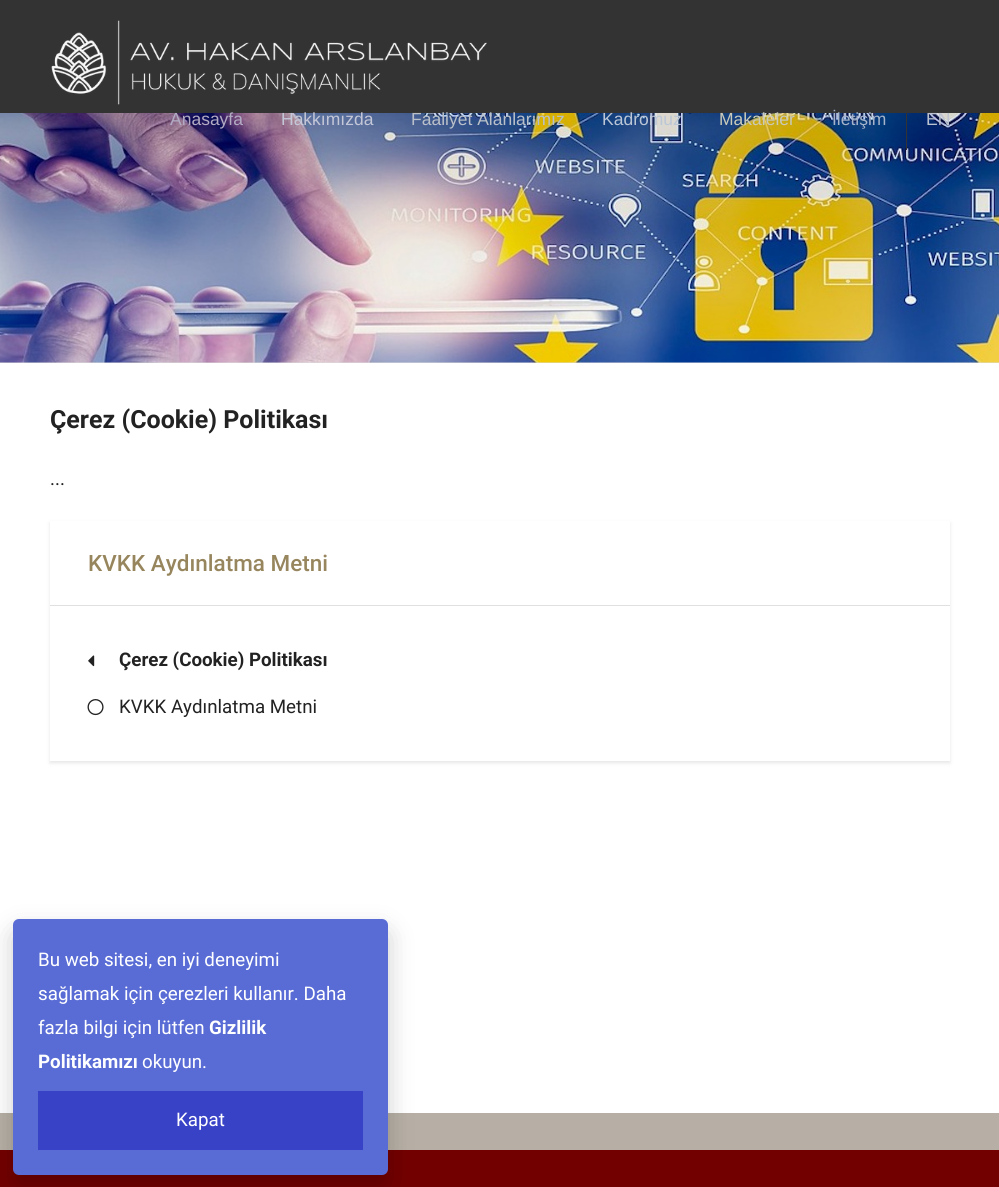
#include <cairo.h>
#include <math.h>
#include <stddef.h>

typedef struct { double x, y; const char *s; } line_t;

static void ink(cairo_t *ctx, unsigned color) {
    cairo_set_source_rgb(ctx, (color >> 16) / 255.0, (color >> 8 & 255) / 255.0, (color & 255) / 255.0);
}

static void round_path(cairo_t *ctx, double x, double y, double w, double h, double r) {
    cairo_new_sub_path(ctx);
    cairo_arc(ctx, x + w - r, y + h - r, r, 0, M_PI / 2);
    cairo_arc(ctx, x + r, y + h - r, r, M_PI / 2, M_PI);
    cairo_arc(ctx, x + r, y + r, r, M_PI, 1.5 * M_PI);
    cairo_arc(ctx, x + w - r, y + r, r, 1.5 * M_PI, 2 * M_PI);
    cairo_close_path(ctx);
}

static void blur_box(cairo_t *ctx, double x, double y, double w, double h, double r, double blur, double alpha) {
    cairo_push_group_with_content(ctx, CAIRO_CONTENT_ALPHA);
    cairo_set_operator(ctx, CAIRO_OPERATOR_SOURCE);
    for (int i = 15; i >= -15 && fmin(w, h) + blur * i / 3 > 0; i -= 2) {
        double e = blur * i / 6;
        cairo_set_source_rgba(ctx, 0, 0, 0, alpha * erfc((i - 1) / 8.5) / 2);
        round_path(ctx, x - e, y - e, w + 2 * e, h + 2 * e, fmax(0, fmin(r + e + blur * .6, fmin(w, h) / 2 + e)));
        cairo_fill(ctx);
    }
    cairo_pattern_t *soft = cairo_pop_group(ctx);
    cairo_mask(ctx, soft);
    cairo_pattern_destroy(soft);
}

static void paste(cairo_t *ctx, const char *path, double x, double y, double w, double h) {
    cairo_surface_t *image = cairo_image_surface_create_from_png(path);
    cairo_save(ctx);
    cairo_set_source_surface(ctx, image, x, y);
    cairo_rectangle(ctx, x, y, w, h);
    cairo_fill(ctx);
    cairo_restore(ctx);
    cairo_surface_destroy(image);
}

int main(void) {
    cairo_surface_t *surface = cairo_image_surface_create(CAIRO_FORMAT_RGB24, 999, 1187);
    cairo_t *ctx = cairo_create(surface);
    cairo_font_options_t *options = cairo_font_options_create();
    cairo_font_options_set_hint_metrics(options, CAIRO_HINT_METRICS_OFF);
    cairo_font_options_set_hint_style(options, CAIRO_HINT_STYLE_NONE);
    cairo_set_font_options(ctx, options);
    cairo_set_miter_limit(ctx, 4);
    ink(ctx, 0xFFFFFF);
    cairo_paint(ctx);
    ink(ctx, 0x333333);
    cairo_rectangle(ctx, 0, 0, 999, 113);
    cairo_fill(ctx);
    paste(ctx, "media/1.png", 51, 20, 436, 85);
    ink(ctx, 0xDDDDDD);
    cairo_rectangle(ctx, 0, 362, 999, 1);
    cairo_fill(ctx);
    paste(ctx, "media/2.png", 0, 113, 999, 250);
    cairo_select_font_face(ctx, "Liberation Sans", CAIRO_FONT_SLANT_NORMAL, CAIRO_FONT_WEIGHT_NORMAL);
    cairo_set_font_size(ctx, 17.5);
    ink(ctx, 0xB2ABC3);
    cairo_move_to(ctx, 170, 125);
    cairo_show_text(ctx, "Anasayfa");
    ink(ctx, 0xC3C7D7);
    cairo_move_to(ctx, 281, 125);
    cairo_show_text(ctx, "Hakkımızda");
    ink(ctx, 0xB9C0C9);
    cairo_move_to(ctx, 411, 125);
    cairo_show_text(ctx, "Faaliyet Alanlarımız");
    ink(ctx, 0xBBC6D6);
    cairo_move_to(ctx, 602, 125);
    cairo_show_text(ctx, "Kadromuz");
    ink(ctx, 0xC9CAB9);
    cairo_move_to(ctx, 719, 125);
    cairo_show_text(ctx, "Makaleler");
    ink(ctx, 0xA5B4CA);
    cairo_move_to(ctx, 832, 125);
    cairo_show_text(ctx, "İletişim");
    ink(ctx, 0x333333);
    cairo_rectangle(ctx, 906, 113, 1, 37);
    cairo_fill(ctx);
    ink(ctx, 0xBCC2D0);
    cairo_move_to(ctx, 926, 125);
    cairo_show_text(ctx, "EN");
    cairo_select_font_face(ctx, "Roboto", CAIRO_FONT_SLANT_NORMAL, CAIRO_FONT_WEIGHT_BOLD);
    cairo_set_font_size(ctx, 25);
    ink(ctx, 0x222222);
    cairo_move_to(ctx, 50, 428);
    cairo_show_text(ctx, "Çerez (Cookie) Politikası");
    cairo_select_font_face(ctx, "Roboto", CAIRO_FONT_SLANT_NORMAL, CAIRO_FONT_WEIGHT_NORMAL);
    cairo_set_font_size(ctx, 18.75);
    cairo_move_to(ctx, 50, 485);
    cairo_show_text(ctx, "...");
    cairo_save(ctx);
    cairo_set_fill_rule(ctx, CAIRO_FILL_RULE_EVEN_ODD);
    cairo_new_path(ctx);
    cairo_move_to(ctx, 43, 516);
    cairo_line_to(ctx, 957, 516);
    cairo_line_to(ctx, 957, 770);
    cairo_line_to(ctx, 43, 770);
    cairo_close_path(ctx);
    cairo_move_to(ctx, 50, 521);
    cairo_line_to(ctx, 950, 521);
    cairo_line_to(ctx, 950, 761);
    cairo_line_to(ctx, 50, 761);
    cairo_close_path(ctx);
    cairo_clip(ctx);
    ink(ctx, 0x000000);
    blur_box(ctx, 50, 523, 900, 240, 0, 2, 0.1);
    cairo_restore(ctx);
    ink(ctx, 0xE0E0E0);
    cairo_rectangle(ctx, 50, 605, 900, 1);
    cairo_fill(ctx);
    cairo_select_font_face(ctx, "Roboto Medium", CAIRO_FONT_SLANT_NORMAL, CAIRO_FONT_WEIGHT_NORMAL);
    cairo_set_font_size(ctx, 22.5);
    ink(ctx, 0x97865D);
    cairo_move_to(ctx, 88, 571);
    cairo_show_text(ctx, "KVKK Aydınlatma Metni");
    paste(ctx, "media/3.png", 88, 655, 7, 12);
    cairo_select_font_face(ctx, "Roboto", CAIRO_FONT_SLANT_NORMAL, CAIRO_FONT_WEIGHT_BOLD);
    cairo_set_font_size(ctx, 18.75);
    ink(ctx, 0x222222);
    cairo_move_to(ctx, 119, 666);
    cairo_show_text(ctx, "Çerez (Cookie) Politikası");
    paste(ctx, "media/4.png", 87, 699, 17, 17);
    cairo_select_font_face(ctx, "Roboto", CAIRO_FONT_SLANT_NORMAL, CAIRO_FONT_WEIGHT_NORMAL);
    cairo_move_to(ctx, 119, 713);
    cairo_show_text(ctx, "KVKK Aydınlatma Metni");
    ink(ctx, 0xB7AFA5);
    cairo_rectangle(ctx, 0, 1113, 999, 37);
    cairo_fill(ctx);
    ink(ctx, 0x730000);
    cairo_rectangle(ctx, 0, 1150, 999, 37);
    cairo_fill(ctx);
    ink(ctx, 0x000000);
    blur_box(ctx, 13, 931, 375, 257, 6, 12.5, 0.2);
    ink(ctx, 0x596CD5);
    round_path(ctx, 13, 919, 375, 256, 6);
    cairo_fill(ctx);
    ink(ctx, 0xFFFFFF);
    {
        static const line_t items[] = {
            {38, 966, "Bu web sitesi, en iyi deneyimi"},
            {38, 1000, "sağlamak için çerezleri kullanır. Daha"},
            {38, 1034, "fazla bilgi için lütfen"},
        };
        for (size_t i = 0; i < sizeof items / sizeof *items; i++) {
            cairo_move_to(ctx, items[i].x, items[i].y);
            cairo_show_text(ctx, items[i].s);
        }
    }
    cairo_select_font_face(ctx, "Roboto", CAIRO_FONT_SLANT_NORMAL, CAIRO_FONT_WEIGHT_BOLD);
    cairo_move_to(ctx, 209, 1034);
    cairo_show_text(ctx, "Gizlilik");
    cairo_move_to(ctx, 38, 1068);
    cairo_show_text(ctx, "Politikamızı");
    cairo_select_font_face(ctx, "Roboto", CAIRO_FONT_SLANT_NORMAL, CAIRO_FONT_WEIGHT_NORMAL);
    cairo_move_to(ctx, 142, 1068);
    cairo_show_text(ctx, "okuyun.");
    ink(ctx, 0x3842C7);
    cairo_rectangle(ctx, 38, 1091, 325, 59);
    cairo_fill(ctx);
    ink(ctx, 0xFFFFFF);
    cairo_move_to(ctx, 176, 1126);
    cairo_show_text(ctx, "Kapat");
    cairo_surface_write_to_png(surface, "image.png");
    cairo_font_options_destroy(options);
    cairo_destroy(ctx);
    cairo_surface_destroy(surface);
    return 0;
}
